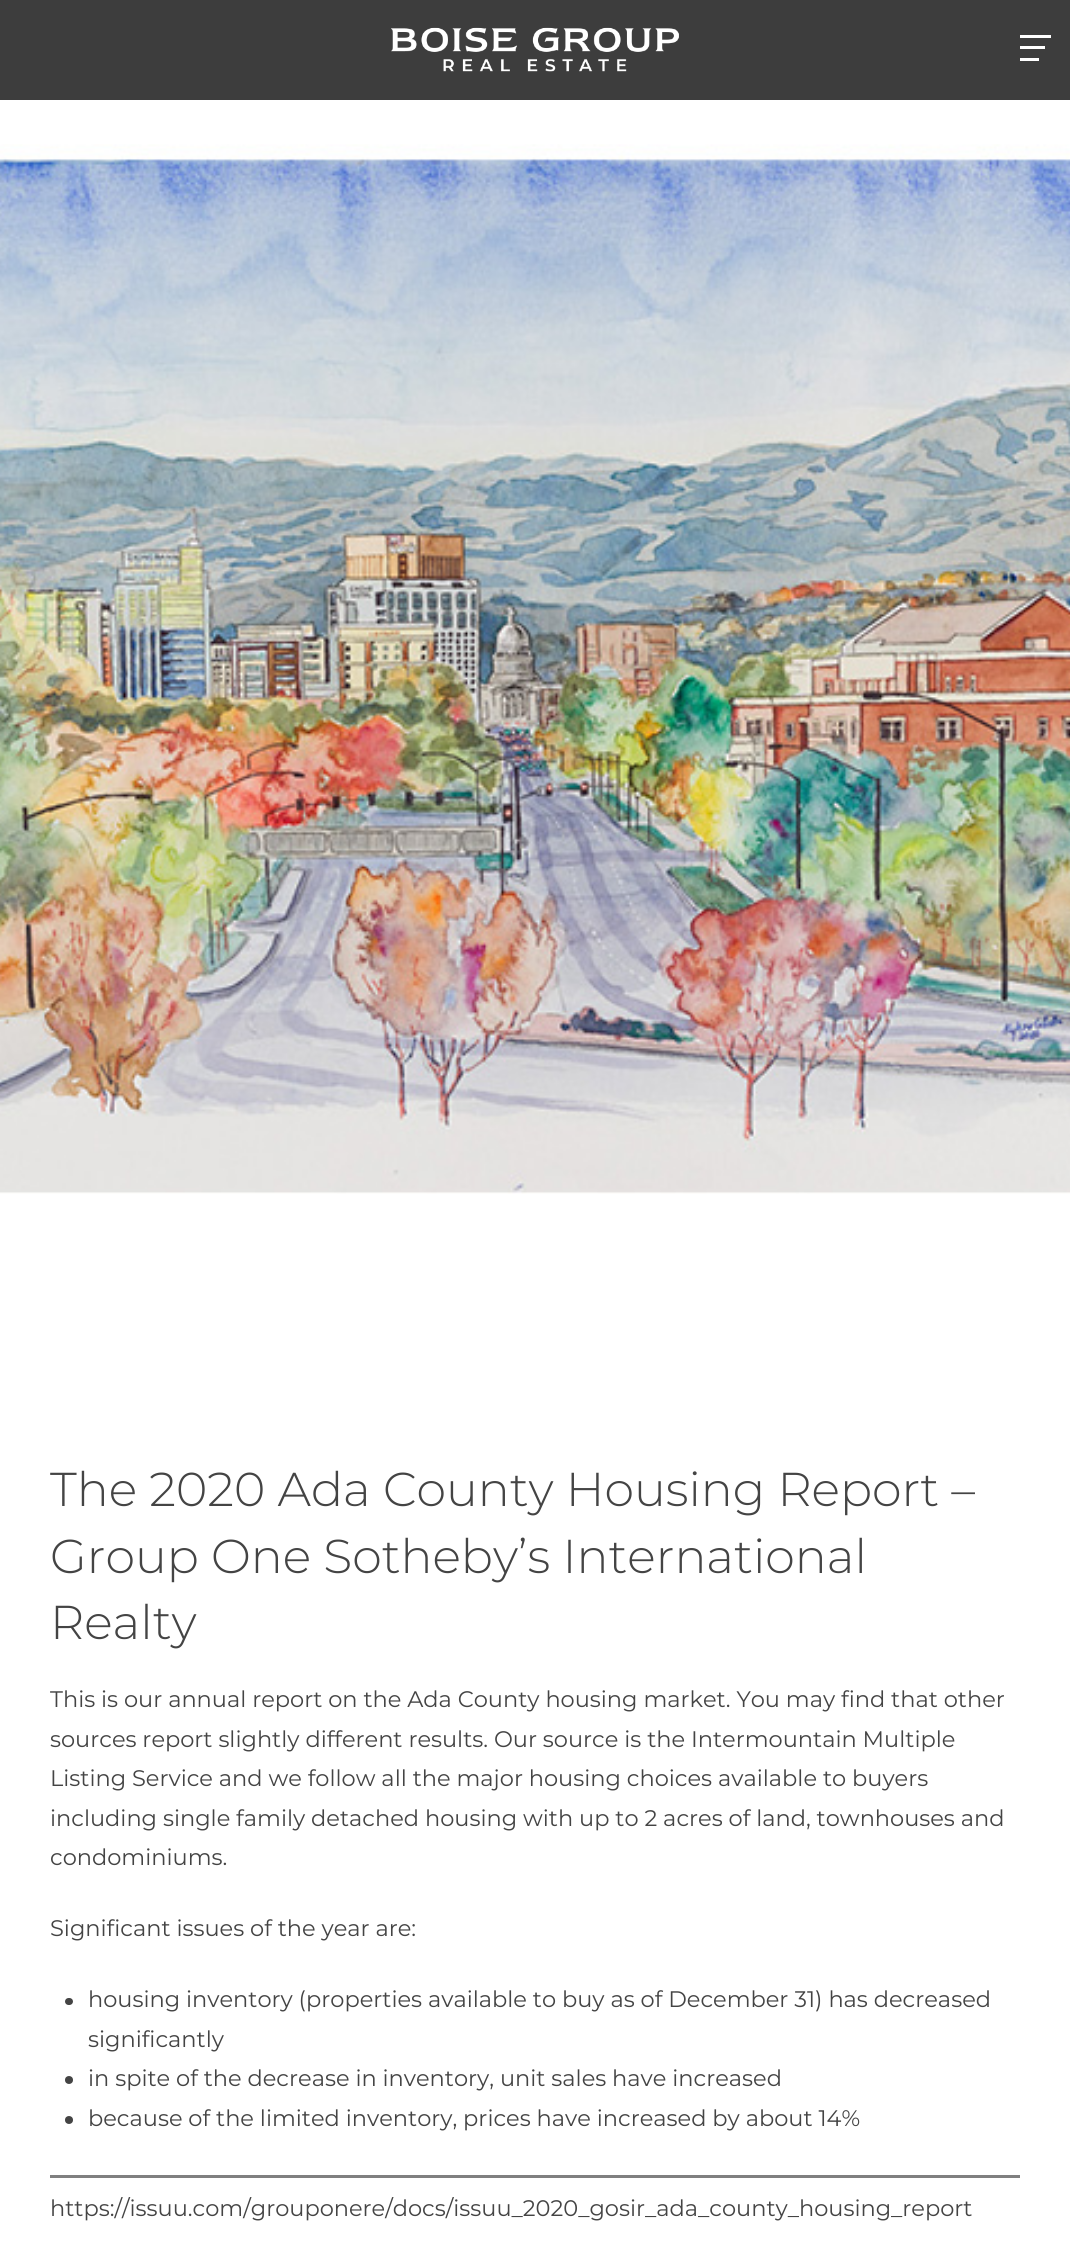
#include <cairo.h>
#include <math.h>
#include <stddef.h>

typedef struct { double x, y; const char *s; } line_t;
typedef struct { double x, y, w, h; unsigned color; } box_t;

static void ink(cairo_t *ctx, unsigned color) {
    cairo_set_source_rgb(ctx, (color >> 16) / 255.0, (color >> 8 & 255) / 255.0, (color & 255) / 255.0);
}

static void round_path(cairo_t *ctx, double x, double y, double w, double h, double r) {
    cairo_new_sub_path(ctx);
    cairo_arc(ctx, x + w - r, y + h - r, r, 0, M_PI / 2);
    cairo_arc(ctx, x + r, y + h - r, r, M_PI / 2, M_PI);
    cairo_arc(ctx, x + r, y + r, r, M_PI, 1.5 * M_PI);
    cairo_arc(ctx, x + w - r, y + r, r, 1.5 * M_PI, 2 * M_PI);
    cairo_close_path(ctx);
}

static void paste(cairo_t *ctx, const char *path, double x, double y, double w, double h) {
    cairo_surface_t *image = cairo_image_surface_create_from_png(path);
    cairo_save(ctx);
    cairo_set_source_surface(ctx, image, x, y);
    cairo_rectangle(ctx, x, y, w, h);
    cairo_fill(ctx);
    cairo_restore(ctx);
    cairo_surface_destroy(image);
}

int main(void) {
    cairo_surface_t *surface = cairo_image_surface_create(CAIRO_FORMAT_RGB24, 1070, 2249);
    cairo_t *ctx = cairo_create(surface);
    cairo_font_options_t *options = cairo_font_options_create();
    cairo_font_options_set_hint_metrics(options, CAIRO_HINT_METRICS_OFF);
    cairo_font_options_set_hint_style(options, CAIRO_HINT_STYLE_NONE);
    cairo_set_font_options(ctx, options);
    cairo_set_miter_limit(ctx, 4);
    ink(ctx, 0xFFFFFF);
    cairo_paint(ctx);
    {
        static const box_t items[] = {
            {0, 0, 1070, 100, 0x3D3D3D},
            {1020, 35, 31, 3, 0xFFFFFF},
            {1020, 46, 25, 3, 0xFFFFFF},
            {1020, 58, 19, 3, 0xFFFFFF},
        };
        for (size_t i = 0; i < sizeof items / sizeof *items; i++) {
            ink(ctx, items[i].color);
            cairo_rectangle(ctx, items[i].x, items[i].y, items[i].w, items[i].h);
            cairo_fill(ctx);
        }
    }
    paste(ctx, "media/1.png", 391, 27, 288, 45);
    paste(ctx, "media/2.png", 0, 144, 1070, 1050);
    cairo_select_font_face(ctx, "Montserrat Light", CAIRO_FONT_SLANT_NORMAL, CAIRO_FONT_WEIGHT_NORMAL);
    cairo_set_font_size(ctx, 47.5);
    ink(ctx, 0x444444);
    {
        static const line_t items[] = {
            {50, 1506, "The 2020 Ada County Housing Report –"},
            {50, 1573, "Group One Sotheby’s International"},
            {50, 1639, "Realty"},
        };
        for (size_t i = 0; i < sizeof items / sizeof *items; i++) {
            cairo_move_to(ctx, items[i].x, items[i].y);
            cairo_show_text(ctx, items[i].s);
        }
    }
    cairo_select_font_face(ctx, "Montserrat", CAIRO_FONT_SLANT_NORMAL, CAIRO_FONT_WEIGHT_NORMAL);
    cairo_set_font_size(ctx, 22.5);
    {
        static const line_t items[] = {
            {50, 1707, "This is our annual report on the Ada County housing market. You may find that other"},
            {50, 1747, "sources report slightly different results. Our source is the Intermountain Multiple"},
            {50, 1786, "Listing Service and we follow all the major housing choices available to buyers"},
            {50, 1826, "including single family detached housing with up to 2 acres of land, townhouses and"},
            {50, 1865, "condominiums."},
            {50, 1936, "Significant issues of the year are:"},
        };
        for (size_t i = 0; i < sizeof items / sizeof *items; i++) {
            cairo_move_to(ctx, items[i].x, items[i].y);
            cairo_show_text(ctx, items[i].s);
        }
    }
    round_path(ctx, 65, 1998, 8, 7, 3.5);
    cairo_fill(ctx);
    cairo_move_to(ctx, 88, 2007);
    cairo_show_text(ctx, "housing inventory (properties available to buy as of December 31) has decreased");
    cairo_move_to(ctx, 88, 2047);
    cairo_show_text(ctx, "significantly");
    cairo_new_path(ctx);
    cairo_arc(ctx, 69, 2080, 4, 0, 2 * M_PI);
    cairo_fill(ctx);
    cairo_move_to(ctx, 88, 2086);
    cairo_show_text(ctx, "in spite of the decrease in inventory, unit sales have increased");
    cairo_new_path(ctx);
    cairo_arc(ctx, 69, 2120, 4, 0, 2 * M_PI);
    cairo_fill(ctx);
    cairo_move_to(ctx, 88, 2126);
    cairo_show_text(ctx, "because of the limited inventory, prices have increased by about 14%");
    ink(ctx, 0x808080);
    cairo_rectangle(ctx, 50, 2175, 970, 3);
    cairo_fill(ctx);
    ink(ctx, 0x444444);
    cairo_move_to(ctx, 50, 2216);
    cairo_show_text(ctx, "https://issuu.com/grouponere/docs/issuu_2020_gosir_ada_county_housing_report");
    cairo_surface_write_to_png(surface, "image.png");
    cairo_font_options_destroy(options);
    cairo_destroy(ctx);
    cairo_surface_destroy(surface);
    return 0;
}
